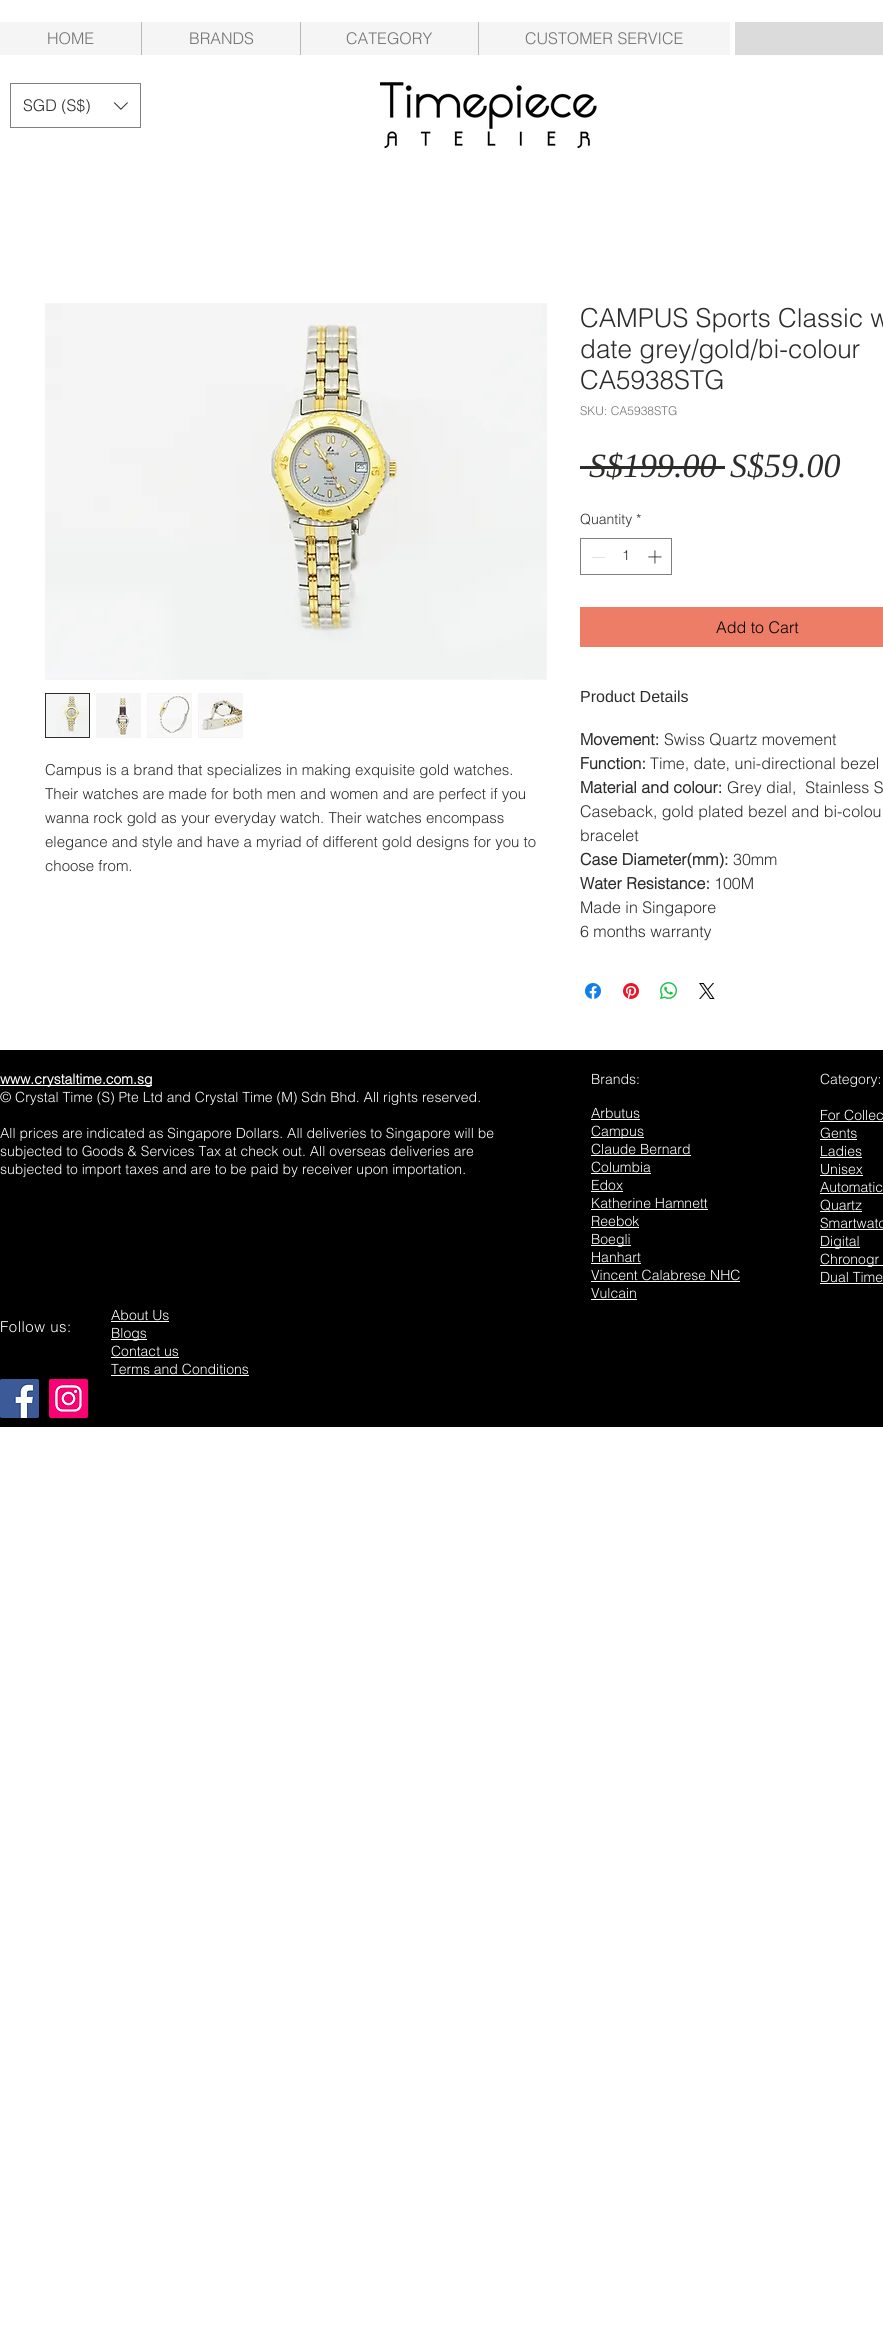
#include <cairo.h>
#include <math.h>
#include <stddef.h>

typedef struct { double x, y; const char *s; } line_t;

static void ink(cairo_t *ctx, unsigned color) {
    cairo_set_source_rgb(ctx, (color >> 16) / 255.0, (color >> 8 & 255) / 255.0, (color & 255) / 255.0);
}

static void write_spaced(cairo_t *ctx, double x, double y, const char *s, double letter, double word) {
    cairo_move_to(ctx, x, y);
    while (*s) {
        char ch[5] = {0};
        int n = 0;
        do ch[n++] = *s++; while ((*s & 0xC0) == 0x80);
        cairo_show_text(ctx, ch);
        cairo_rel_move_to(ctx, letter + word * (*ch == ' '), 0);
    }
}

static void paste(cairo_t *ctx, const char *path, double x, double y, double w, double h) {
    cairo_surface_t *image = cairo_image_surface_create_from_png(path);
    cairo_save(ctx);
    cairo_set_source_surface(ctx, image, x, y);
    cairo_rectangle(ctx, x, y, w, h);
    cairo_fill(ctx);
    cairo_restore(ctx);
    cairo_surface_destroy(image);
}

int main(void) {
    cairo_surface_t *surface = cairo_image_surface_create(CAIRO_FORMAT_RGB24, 883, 2349);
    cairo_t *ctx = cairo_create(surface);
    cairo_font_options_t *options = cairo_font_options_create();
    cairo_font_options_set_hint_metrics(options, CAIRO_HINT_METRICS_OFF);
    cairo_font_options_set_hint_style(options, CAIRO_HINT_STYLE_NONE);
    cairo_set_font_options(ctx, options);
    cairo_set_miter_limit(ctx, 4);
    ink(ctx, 0xFFFFFF);
    cairo_paint(ctx);
    ink(ctx, 0xF5F5F5);
    cairo_rectangle(ctx, 0, 22, 730, 33);
    cairo_fill(ctx);
    cairo_select_font_face(ctx, "helvetica Light", CAIRO_FONT_SLANT_NORMAL, CAIRO_FONT_WEIGHT_NORMAL);
    cairo_set_font_size(ctx, 16);
    ink(ctx, 0x727272);
    cairo_move_to(ctx, 47, 44);
    cairo_show_text(ctx, "HOME");
    ink(ctx, 0xB9B9B9);
    cairo_rectangle(ctx, 141, 22, 1, 33);
    cairo_fill(ctx);
    ink(ctx, 0x727272);
    cairo_move_to(ctx, 189, 44);
    cairo_show_text(ctx, "BRANDS");
    ink(ctx, 0xB9B9B9);
    cairo_rectangle(ctx, 300, 22, 1, 33);
    cairo_fill(ctx);
    ink(ctx, 0x727272);
    cairo_move_to(ctx, 346, 44);
    cairo_show_text(ctx, "CATEGORY");
    ink(ctx, 0xB9B9B9);
    cairo_rectangle(ctx, 478, 22, 1, 33);
    cairo_fill(ctx);
    ink(ctx, 0x727272);
    cairo_move_to(ctx, 525, 44);
    cairo_show_text(ctx, "CUSTOMER SERVICE");
    ink(ctx, 0xDBDBDB);
    cairo_rectangle(ctx, 735, 22, 148, 33);
    cairo_fill(ctx);
    cairo_rectangle(ctx, 10.5, 83.5, 130, 44);
    ink(ctx, 0x808080);
    cairo_set_line_width(ctx, 1);
    cairo_stroke(ctx);
    ink(ctx, 0x2C2C2B);
    cairo_move_to(ctx, 23, 111);
    cairo_show_text(ctx, "SGD (S$)");
    paste(ctx, "media/1.png", 113, 102, 15, 8);
    paste(ctx, "media/2.png", 380, 82, 217, 67);
    cairo_rectangle(ctx, 45.5, 303.5, 501, 376);
    ink(ctx, 0xF5F5F5);
    cairo_stroke(ctx);
    paste(ctx, "media/3.png", 46, 304, 500, 375);
    cairo_rectangle(ctx, 46, 694, 10, 43);
    cairo_fill(ctx);
    cairo_rectangle(ctx, 45.5, 693.5, 44, 44);
    ink(ctx, 0x2C2C2B);
    cairo_stroke(ctx);
    paste(ctx, "media/4.png", 56, 694, 33, 43);
    ink(ctx, 0xF5F5F5);
    cairo_rectangle(ctx, 96, 693, 45, 45);
    cairo_fill(ctx);
    paste(ctx, "media/5.png", 113, 694, 16, 43);
    cairo_rectangle(ctx, 147, 693, 45, 45);
    cairo_fill(ctx);
    paste(ctx, "media/6.png", 148, 694, 43, 43);
    cairo_rectangle(ctx, 198, 693, 45, 45);
    cairo_fill(ctx);
    paste(ctx, "media/7.png", 199, 694, 43, 43);
    cairo_set_font_size(ctx, 15);
    ink(ctx, 0x2C2C2B);
    {
        static const line_t items[] = {
            {45, 775, "Campus is a brand that specializes in making exquisite gold watches."},
            {45, 799, "Their watches are made for both men and women and are perfect if you"},
            {45, 823, "wanna rock gold as your everyday watch. Their watches encompass"},
            {45, 847, "elegance and style and have a myriad of different gold designs for you to"},
            {45, 871, "choose from."},
        };
        for (size_t i = 0; i < sizeof items / sizeof *items; i++) {
            cairo_move_to(ctx, items[i].x, items[i].y);
            cairo_show_text(ctx, items[i].s);
        }
    }
    cairo_set_font_size(ctx, 26);
    {
        static const line_t items[] = {
            {580, 327, "CAMPUS Sports Classic w"},
            {580, 358, "date grey/gold/bi-colour"},
            {580, 389, "CA5938STG"},
        };
        for (size_t i = 0; i < sizeof items / sizeof *items; i++) {
            cairo_move_to(ctx, items[i].x, items[i].y);
            cairo_show_text(ctx, items[i].s);
        }
    }
    cairo_set_font_size(ctx, 12);
    ink(ctx, 0x727272);
    cairo_move_to(ctx, 580, 415);
    cairo_show_text(ctx, "SKU: CA5938STG");
    cairo_select_font_face(ctx, "Liberation Serif", CAIRO_FONT_SLANT_ITALIC, CAIRO_FONT_WEIGHT_NORMAL);
    cairo_set_font_size(ctx, 34);
    ink(ctx, 0x2C2C2B);
    cairo_move_to(ctx, 589, 477);
    cairo_show_text(ctx, "S$199.00");
    cairo_rectangle(ctx, 580, 466, 145, 3);
    cairo_fill(ctx);
    cairo_move_to(ctx, 730, 477);
    cairo_show_text(ctx, "S$59.00");
    cairo_select_font_face(ctx, "helvetica Light", CAIRO_FONT_SLANT_NORMAL, CAIRO_FONT_WEIGHT_NORMAL);
    cairo_set_font_size(ctx, 14);
    cairo_move_to(ctx, 580, 524);
    cairo_show_text(ctx, "Quantity *");
    cairo_rectangle(ctx, 580.5, 538.5, 91, 36);
    ink(ctx, 0x808080);
    cairo_stroke(ctx);
    ink(ctx, 0xE3E3E3);
    cairo_rectangle(ctx, 592, 557, 13, 1);
    cairo_fill(ctx);
    ink(ctx, 0x2C2C2B);
    cairo_move_to(ctx, 622, 560);
    cairo_show_text(ctx, "1");
    paste(ctx, "media/8.png", 648, 550, 14, 14);
    ink(ctx, 0xEE7D67);
    cairo_rectangle(ctx, 580, 607, 303, 40);
    cairo_fill(ctx);
    cairo_set_font_size(ctx, 16);
    ink(ctx, 0x000000);
    cairo_move_to(ctx, 716, 633);
    cairo_show_text(ctx, "Add to Cart");
    cairo_select_font_face(ctx, "Liberation Sans", CAIRO_FONT_SLANT_NORMAL, CAIRO_FONT_WEIGHT_NORMAL);
    ink(ctx, 0x2C2C2B);
    cairo_move_to(ctx, 580, 702);
    cairo_show_text(ctx, "Product Details");
    cairo_select_font_face(ctx, "helvetica", CAIRO_FONT_SLANT_NORMAL, CAIRO_FONT_WEIGHT_BOLD);
    cairo_move_to(ctx, 580, 745);
    cairo_show_text(ctx, "Movement:");
    cairo_select_font_face(ctx, "helvetica Light", CAIRO_FONT_SLANT_NORMAL, CAIRO_FONT_WEIGHT_NORMAL);
    cairo_move_to(ctx, 664, 745);
    cairo_show_text(ctx, "Swiss Quartz movement");
    cairo_select_font_face(ctx, "helvetica", CAIRO_FONT_SLANT_NORMAL, CAIRO_FONT_WEIGHT_BOLD);
    cairo_move_to(ctx, 580, 769);
    cairo_show_text(ctx, "Function:");
    cairo_select_font_face(ctx, "helvetica Light", CAIRO_FONT_SLANT_NORMAL, CAIRO_FONT_WEIGHT_NORMAL);
    cairo_move_to(ctx, 650, 769);
    cairo_show_text(ctx, "Time, date, uni-directional bezel");
    cairo_select_font_face(ctx, "helvetica", CAIRO_FONT_SLANT_NORMAL, CAIRO_FONT_WEIGHT_BOLD);
    cairo_move_to(ctx, 580, 793);
    cairo_show_text(ctx, "Material and colour:");
    cairo_select_font_face(ctx, "helvetica Light", CAIRO_FONT_SLANT_NORMAL, CAIRO_FONT_WEIGHT_NORMAL);
    {
        static const line_t items[] = {
            {727, 793, "Grey dial,  Stainless S"},
            {580, 817, "Caseback, gold plated bezel and bi-colou"},
            {580, 841, "bracelet"},
        };
        for (size_t i = 0; i < sizeof items / sizeof *items; i++) {
            cairo_move_to(ctx, items[i].x, items[i].y);
            cairo_show_text(ctx, items[i].s);
        }
    }
    cairo_select_font_face(ctx, "helvetica", CAIRO_FONT_SLANT_NORMAL, CAIRO_FONT_WEIGHT_BOLD);
    cairo_move_to(ctx, 580, 865);
    cairo_show_text(ctx, "Case Diameter(mm):");
    cairo_select_font_face(ctx, "helvetica Light", CAIRO_FONT_SLANT_NORMAL, CAIRO_FONT_WEIGHT_NORMAL);
    cairo_move_to(ctx, 733, 865);
    cairo_show_text(ctx, "30mm");
    cairo_select_font_face(ctx, "helvetica", CAIRO_FONT_SLANT_NORMAL, CAIRO_FONT_WEIGHT_BOLD);
    cairo_move_to(ctx, 580, 889);
    cairo_show_text(ctx, "Water Resistance:");
    cairo_select_font_face(ctx, "helvetica Light", CAIRO_FONT_SLANT_NORMAL, CAIRO_FONT_WEIGHT_NORMAL);
    {
        static const line_t items[] = {
            {714, 889, "100M"},
            {580, 913, "Made in Singapore"},
            {580, 937, "6 months warranty"},
        };
        for (size_t i = 0; i < sizeof items / sizeof *items; i++) {
            cairo_move_to(ctx, items[i].x, items[i].y);
            cairo_show_text(ctx, items[i].s);
        }
    }
    paste(ctx, "media/9.png", 585, 983, 16, 16);
    paste(ctx, "media/10.png", 623, 983, 16, 16);
    paste(ctx, "media/11.png", 660, 982, 17, 17);
    paste(ctx, "media/12.png", 699, 983, 16, 16);
    ink(ctx, 0x000000);
    cairo_rectangle(ctx, 0, 1050, 883, 377);
    cairo_fill(ctx);
    ink(ctx, 0xFFFFFF);
    cairo_rectangle(ctx, 0, 1085, 152, 1);
    cairo_fill(ctx);
    cairo_select_font_face(ctx, "helvetica", CAIRO_FONT_SLANT_NORMAL, CAIRO_FONT_WEIGHT_BOLD);
    cairo_set_font_size(ctx, 14);
    cairo_move_to(ctx, 0, 1084);
    cairo_show_text(ctx, "www.crystaltime.com.sg");
    cairo_select_font_face(ctx, "helvetica Light", CAIRO_FONT_SLANT_NORMAL, CAIRO_FONT_WEIGHT_NORMAL);
    {
        static const line_t items[] = {
            {0, 1102, "© Crystal Time (S) Pte Ltd and Crystal Time (M) Sdn Bhd. All rights reserved."},
            {0, 1138, "All prices are indicated as Singapore Dollars. All deliveries to Singapore will be"},
            {0, 1156, "subjected to Goods & Services Tax at check out. All overseas deliveries are"},
            {0, 1174, "subjected to import taxes and are to be paid by receiver upon importation."},
            {591, 1084, "Brands:"},
            {591, 1118, "Arbutus"},
        };
        for (size_t i = 0; i < sizeof items / sizeof *items; i++) {
            cairo_move_to(ctx, items[i].x, items[i].y);
            cairo_show_text(ctx, items[i].s);
        }
    }
    cairo_rectangle(ctx, 591, 1119, 49, 1);
    cairo_fill(ctx);
    cairo_rectangle(ctx, 591, 1137, 53, 1);
    cairo_fill(ctx);
    cairo_move_to(ctx, 591, 1136);
    cairo_show_text(ctx, "Campus");
    cairo_move_to(ctx, 591, 1154);
    cairo_show_text(ctx, "Claude Bernard");
    cairo_rectangle(ctx, 591, 1155, 100, 1);
    cairo_fill(ctx);
    cairo_move_to(ctx, 591, 1172);
    cairo_show_text(ctx, "Columbia");
    cairo_rectangle(ctx, 591, 1173, 60, 1);
    cairo_fill(ctx);
    cairo_move_to(ctx, 591, 1190);
    cairo_show_text(ctx, "Edox");
    cairo_rectangle(ctx, 591, 1191, 32, 1);
    cairo_fill(ctx);
    cairo_move_to(ctx, 591, 1208);
    cairo_show_text(ctx, "Katherine Hamnett");
    cairo_rectangle(ctx, 591, 1209, 117, 1);
    cairo_fill(ctx);
    cairo_move_to(ctx, 591, 1226);
    cairo_show_text(ctx, "Reebok");
    cairo_rectangle(ctx, 591, 1227, 48, 1);
    cairo_fill(ctx);
    cairo_rectangle(ctx, 591, 1245, 40, 1);
    cairo_fill(ctx);
    cairo_move_to(ctx, 591, 1244);
    cairo_show_text(ctx, "Boegli");
    cairo_move_to(ctx, 591, 1262);
    cairo_show_text(ctx, "Hanhart");
    cairo_rectangle(ctx, 591, 1263, 50, 1);
    cairo_fill(ctx);
    cairo_move_to(ctx, 591, 1280);
    cairo_show_text(ctx, "Vincent Calabrese NHC");
    cairo_rectangle(ctx, 591, 1281, 149, 1);
    cairo_fill(ctx);
    cairo_move_to(ctx, 591, 1298);
    cairo_show_text(ctx, "Vulcain");
    cairo_rectangle(ctx, 591, 1299, 46, 1);
    cairo_fill(ctx);
    cairo_move_to(ctx, 820, 1084);
    cairo_show_text(ctx, "Category:");
    cairo_move_to(ctx, 820, 1120);
    cairo_show_text(ctx, "For Collec");
    cairo_rectangle(ctx, 820, 1121, 63, 1);
    cairo_fill(ctx);
    cairo_move_to(ctx, 820, 1138);
    cairo_show_text(ctx, "Gents");
    cairo_rectangle(ctx, 820, 1139, 37, 1);
    cairo_fill(ctx);
    cairo_move_to(ctx, 820, 1156);
    cairo_show_text(ctx, "Ladies");
    cairo_rectangle(ctx, 820, 1157, 42, 1);
    cairo_fill(ctx);
    cairo_move_to(ctx, 820, 1174);
    cairo_show_text(ctx, "Unisex");
    cairo_rectangle(ctx, 820, 1175, 43, 1);
    cairo_fill(ctx);
    cairo_move_to(ctx, 820, 1192);
    cairo_show_text(ctx, "Automatic");
    cairo_rectangle(ctx, 820, 1193, 63, 1);
    cairo_fill(ctx);
    cairo_move_to(ctx, 820, 1210);
    cairo_show_text(ctx, "Quartz");
    cairo_rectangle(ctx, 820, 1211, 42, 1);
    cairo_fill(ctx);
    cairo_move_to(ctx, 820, 1228);
    cairo_show_text(ctx, "Smartwatc");
    cairo_rectangle(ctx, 820, 1229, 63, 1);
    cairo_fill(ctx);
    cairo_rectangle(ctx, 820, 1247, 40, 1);
    cairo_fill(ctx);
    cairo_move_to(ctx, 820, 1246);
    cairo_show_text(ctx, "Digital");
    cairo_rectangle(ctx, 820, 1265, 63, 1);
    cairo_fill(ctx);
    cairo_move_to(ctx, 820, 1264);
    cairo_show_text(ctx, "Chronogr");
    cairo_move_to(ctx, 820, 1282);
    cairo_show_text(ctx, "Dual Time");
    cairo_rectangle(ctx, 820, 1283, 63, 1);
    cairo_fill(ctx);
    cairo_set_font_size(ctx, 15);
    write_spaced(ctx, 0, 1332, "Follow us:", 0.5, 0);
    cairo_set_font_size(ctx, 14);
    cairo_move_to(ctx, 111, 1320);
    cairo_show_text(ctx, "About Us");
    cairo_rectangle(ctx, 111, 1321, 58, 1);
    cairo_fill(ctx);
    cairo_rectangle(ctx, 111, 1339, 36, 1);
    cairo_fill(ctx);
    cairo_move_to(ctx, 111, 1338);
    cairo_show_text(ctx, "Blogs");
    cairo_move_to(ctx, 111, 1356);
    cairo_show_text(ctx, "Contact us");
    cairo_rectangle(ctx, 111, 1357, 68, 1);
    cairo_fill(ctx);
    cairo_move_to(ctx, 111, 1374);
    cairo_show_text(ctx, "Terms and Conditions");
    cairo_rectangle(ctx, 111, 1375, 138, 1);
    cairo_fill(ctx);
    paste(ctx, "media/13.png", 0, 1379, 39, 39);
    paste(ctx, "media/14.png", 49, 1379, 39, 39);
    cairo_surface_write_to_png(surface, "image.png");
    cairo_font_options_destroy(options);
    cairo_destroy(ctx);
    cairo_surface_destroy(surface);
    return 0;
}
